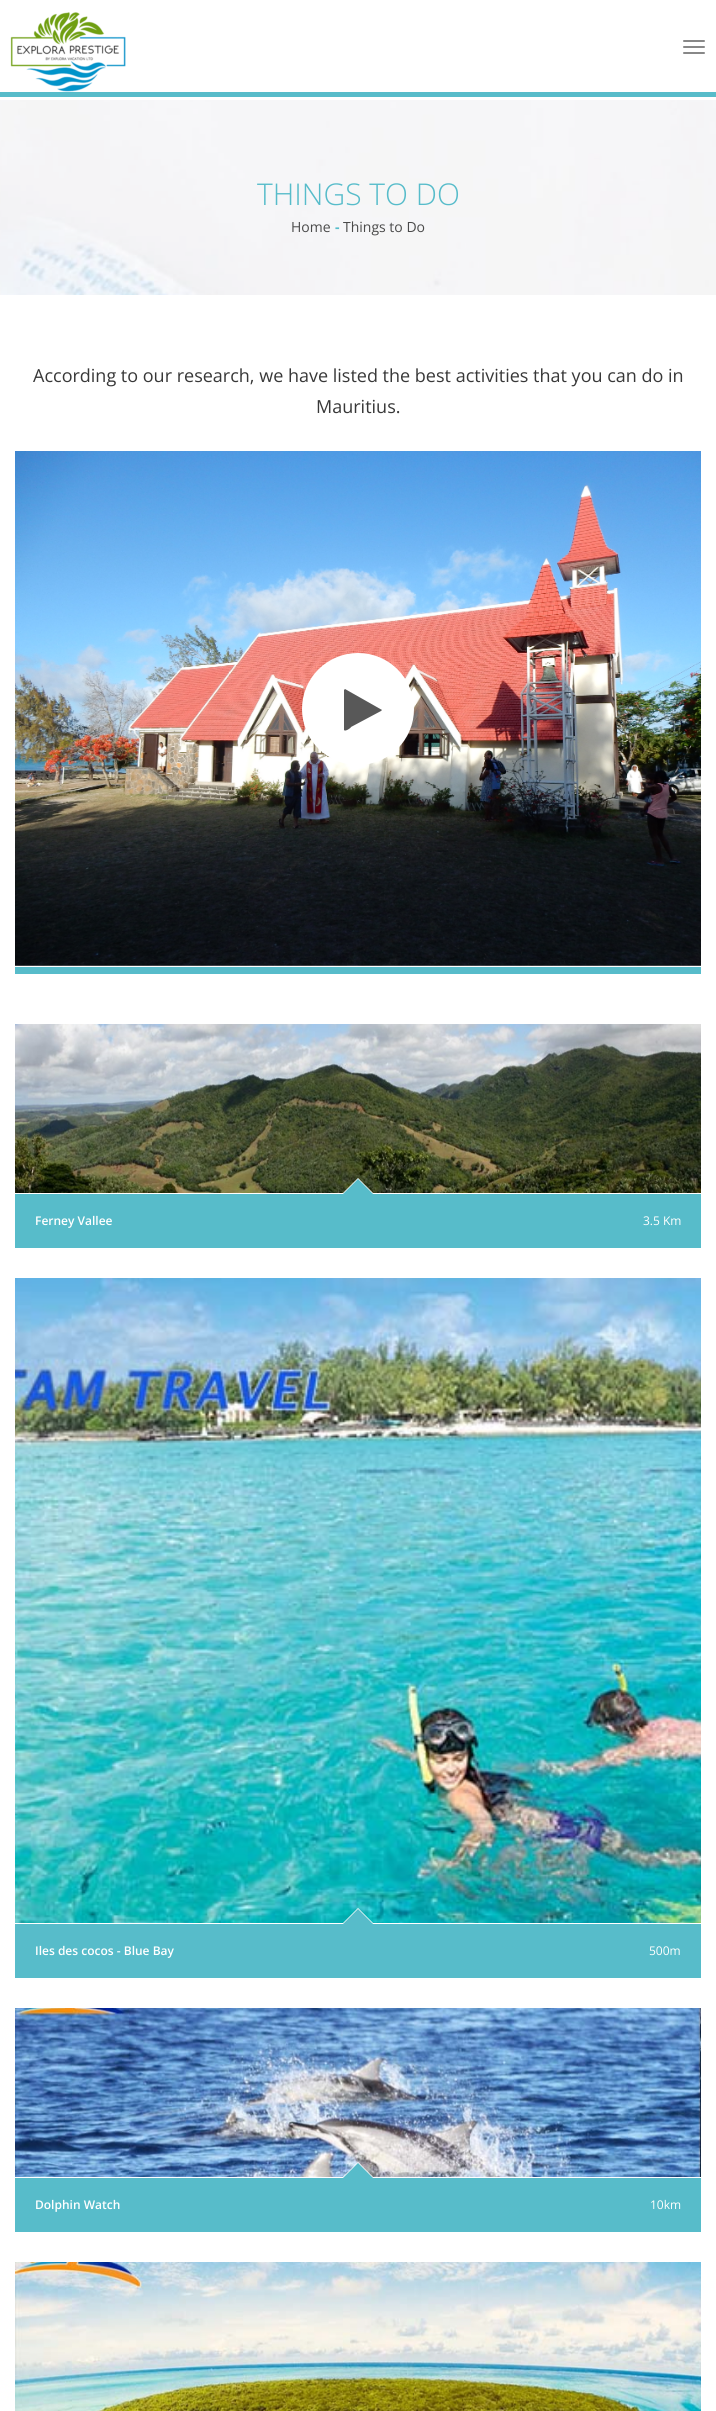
#include <cairo.h>
#include <math.h>
#include <stddef.h>


static void ink(cairo_t *ctx, unsigned color) {
    cairo_set_source_rgb(ctx, (color >> 16) / 255.0, (color >> 8 & 255) / 255.0, (color & 255) / 255.0);
}

static void round_path(cairo_t *ctx, double x, double y, double w, double h, double r) {
    cairo_new_sub_path(ctx);
    cairo_arc(ctx, x + w - r, y + h - r, r, 0, M_PI / 2);
    cairo_arc(ctx, x + r, y + h - r, r, M_PI / 2, M_PI);
    cairo_arc(ctx, x + r, y + r, r, M_PI, 1.5 * M_PI);
    cairo_arc(ctx, x + w - r, y + r, r, 1.5 * M_PI, 2 * M_PI);
    cairo_close_path(ctx);
}

static void paste(cairo_t *ctx, const char *path, double x, double y, double w, double h) {
    cairo_surface_t *image = cairo_image_surface_create_from_png(path);
    cairo_save(ctx);
    cairo_set_source_surface(ctx, image, x, y);
    cairo_rectangle(ctx, x, y, w, h);
    cairo_fill(ctx);
    cairo_restore(ctx);
    cairo_surface_destroy(image);
}

int main(void) {
    cairo_surface_t *surface = cairo_image_surface_create(CAIRO_FORMAT_RGB24, 716, 2411);
    cairo_t *ctx = cairo_create(surface);
    cairo_font_options_t *options = cairo_font_options_create();
    cairo_font_options_set_hint_metrics(options, CAIRO_HINT_METRICS_OFF);
    cairo_font_options_set_hint_style(options, CAIRO_HINT_STYLE_NONE);
    cairo_set_font_options(ctx, options);
    cairo_set_miter_limit(ctx, 4);
    ink(ctx, 0xFFFFFF);
    cairo_paint(ctx);
    paste(ctx, "media/1.png", 10, 12, 116, 80);
    ink(ctx, 0x888888);
    round_path(ctx, 683, 40, 22, 2, 1);
    cairo_fill(ctx);
    round_path(ctx, 683, 46, 22, 2, 1);
    cairo_fill(ctx);
    round_path(ctx, 683, 52, 22, 2, 1);
    cairo_fill(ctx);
    ink(ctx, 0x57BCCA);
    cairo_rectangle(ctx, 0, 92, 716, 5);
    cairo_fill(ctx);
    paste(ctx, "media/2.png", 0, 100, 716, 195);
    cairo_select_font_face(ctx, "Open Sans Light", CAIRO_FONT_SLANT_NORMAL, CAIRO_FONT_WEIGHT_NORMAL);
    cairo_set_font_size(ctx, 30);
    cairo_move_to(ctx, 257, 205);
    cairo_show_text(ctx, "THINGS TO DO");
    cairo_select_font_face(ctx, "Open Sans", CAIRO_FONT_SLANT_NORMAL, CAIRO_FONT_WEIGHT_NORMAL);
    cairo_set_font_size(ctx, 14);
    ink(ctx, 0x4A4A4A);
    cairo_move_to(ctx, 291, 232);
    cairo_show_text(ctx, "Home");
    cairo_select_font_face(ctx, "Open Sans", CAIRO_FONT_SLANT_NORMAL, CAIRO_FONT_WEIGHT_BOLD);
    ink(ctx, 0x57BCCA);
    cairo_move_to(ctx, 335, 232);
    cairo_show_text(ctx, "-");
    cairo_select_font_face(ctx, "Open Sans", CAIRO_FONT_SLANT_NORMAL, CAIRO_FONT_WEIGHT_NORMAL);
    ink(ctx, 0x4A4A4A);
    cairo_move_to(ctx, 343, 232);
    cairo_show_text(ctx, "Things to Do");
    cairo_set_font_size(ctx, 18);
    ink(ctx, 0x383838);
    cairo_move_to(ctx, 33, 382);
    cairo_show_text(ctx, "According to our research, we have listed the best activities that you can do in");
    cairo_move_to(ctx, 316, 413);
    cairo_show_text(ctx, "Mauritius.");
    ink(ctx, 0x57BCCA);
    cairo_rectangle(ctx, 15, 967, 686, 7);
    cairo_fill(ctx);
    paste(ctx, "media/3.png", 15, 451, 686, 515);
    ink(ctx, 0xFFFFFF);
    cairo_arc(ctx, 358, 709, 56, 0, 2 * M_PI);
    cairo_fill(ctx);
    ink(ctx, 0x585858);
    cairo_new_path(ctx);
    cairo_move_to(ctx, 381, 711);
    cairo_line_to(ctx, 351, 727);
    cairo_curve_to(ctx, 351, 728, 345, 732, 344, 730);
    cairo_line_to(ctx, 344, 690);
    cairo_line_to(ctx, 345, 689);
    cairo_line_to(ctx, 375, 706);
    cairo_line_to(ctx, 382, 710);
    cairo_close_path(ctx);
    cairo_fill(ctx);
    paste(ctx, "media/4.png", 15, 1024, 686, 169);
    ink(ctx, 0x57BCCA);
    cairo_rectangle(ctx, 15, 1194, 686, 54);
    cairo_fill(ctx);
    ink(ctx, 0xFFFFFF);
    cairo_new_path(ctx);
    cairo_move_to(ctx, 374, 1194);
    cairo_line_to(ctx, 342, 1194);
    cairo_line_to(ctx, 358, 1178);
    cairo_close_path(ctx);
    cairo_fill(ctx);
    ink(ctx, 0x57BCCA);
    cairo_new_path(ctx);
    cairo_move_to(ctx, 373, 1194);
    cairo_line_to(ctx, 343, 1194);
    cairo_line_to(ctx, 358, 1179);
    cairo_close_path(ctx);
    cairo_fill(ctx);
    cairo_select_font_face(ctx, "Open Sans SemiBold", CAIRO_FONT_SLANT_NORMAL, CAIRO_FONT_WEIGHT_NORMAL);
    cairo_set_font_size(ctx, 12);
    ink(ctx, 0xFFFFFF);
    cairo_move_to(ctx, 35, 1225);
    cairo_show_text(ctx, "Ferney Vallee");
    cairo_select_font_face(ctx, "Open Sans", CAIRO_FONT_SLANT_NORMAL, CAIRO_FONT_WEIGHT_NORMAL);
    cairo_move_to(ctx, 643, 1225);
    cairo_show_text(ctx, "3.5 Km");
    paste(ctx, "media/5.png", 15, 1278, 686, 645);
    ink(ctx, 0x57BCCA);
    cairo_rectangle(ctx, 15, 1924, 686, 54);
    cairo_fill(ctx);
    ink(ctx, 0xFFFFFF);
    cairo_new_path(ctx);
    cairo_move_to(ctx, 374, 1924);
    cairo_line_to(ctx, 342, 1924);
    cairo_line_to(ctx, 358, 1908);
    cairo_close_path(ctx);
    cairo_fill(ctx);
    ink(ctx, 0x57BCCA);
    cairo_new_path(ctx);
    cairo_move_to(ctx, 373, 1924);
    cairo_line_to(ctx, 343, 1924);
    cairo_line_to(ctx, 358, 1909);
    cairo_close_path(ctx);
    cairo_fill(ctx);
    cairo_select_font_face(ctx, "Open Sans SemiBold", CAIRO_FONT_SLANT_NORMAL, CAIRO_FONT_WEIGHT_NORMAL);
    ink(ctx, 0xFFFFFF);
    cairo_move_to(ctx, 35, 1955);
    cairo_show_text(ctx, "Iles des cocos - Blue Bay");
    cairo_select_font_face(ctx, "Open Sans", CAIRO_FONT_SLANT_NORMAL, CAIRO_FONT_WEIGHT_NORMAL);
    cairo_move_to(ctx, 649, 1955);
    cairo_show_text(ctx, "500m");
    paste(ctx, "media/6.png", 15, 2008, 686, 169);
    ink(ctx, 0x57BCCA);
    cairo_rectangle(ctx, 15, 2178, 686, 54);
    cairo_fill(ctx);
    ink(ctx, 0xFFFFFF);
    cairo_new_path(ctx);
    cairo_move_to(ctx, 374, 2178);
    cairo_line_to(ctx, 342, 2178);
    cairo_line_to(ctx, 358, 2162);
    cairo_close_path(ctx);
    cairo_fill(ctx);
    ink(ctx, 0x57BCCA);
    cairo_new_path(ctx);
    cairo_move_to(ctx, 373, 2178);
    cairo_line_to(ctx, 343, 2178);
    cairo_line_to(ctx, 358, 2163);
    cairo_close_path(ctx);
    cairo_fill(ctx);
    cairo_select_font_face(ctx, "Open Sans SemiBold", CAIRO_FONT_SLANT_NORMAL, CAIRO_FONT_WEIGHT_NORMAL);
    ink(ctx, 0xFFFFFF);
    cairo_move_to(ctx, 35, 2209);
    cairo_show_text(ctx, "Dolphin Watch");
    cairo_select_font_face(ctx, "Open Sans", CAIRO_FONT_SLANT_NORMAL, CAIRO_FONT_WEIGHT_NORMAL);
    cairo_move_to(ctx, 650, 2209);
    cairo_show_text(ctx, "10km");
    paste(ctx, "media/7.png", 15, 2262, 686, 149);
    cairo_surface_write_to_png(surface, "image.png");
    cairo_font_options_destroy(options);
    cairo_destroy(ctx);
    cairo_surface_destroy(surface);
    return 0;
}
